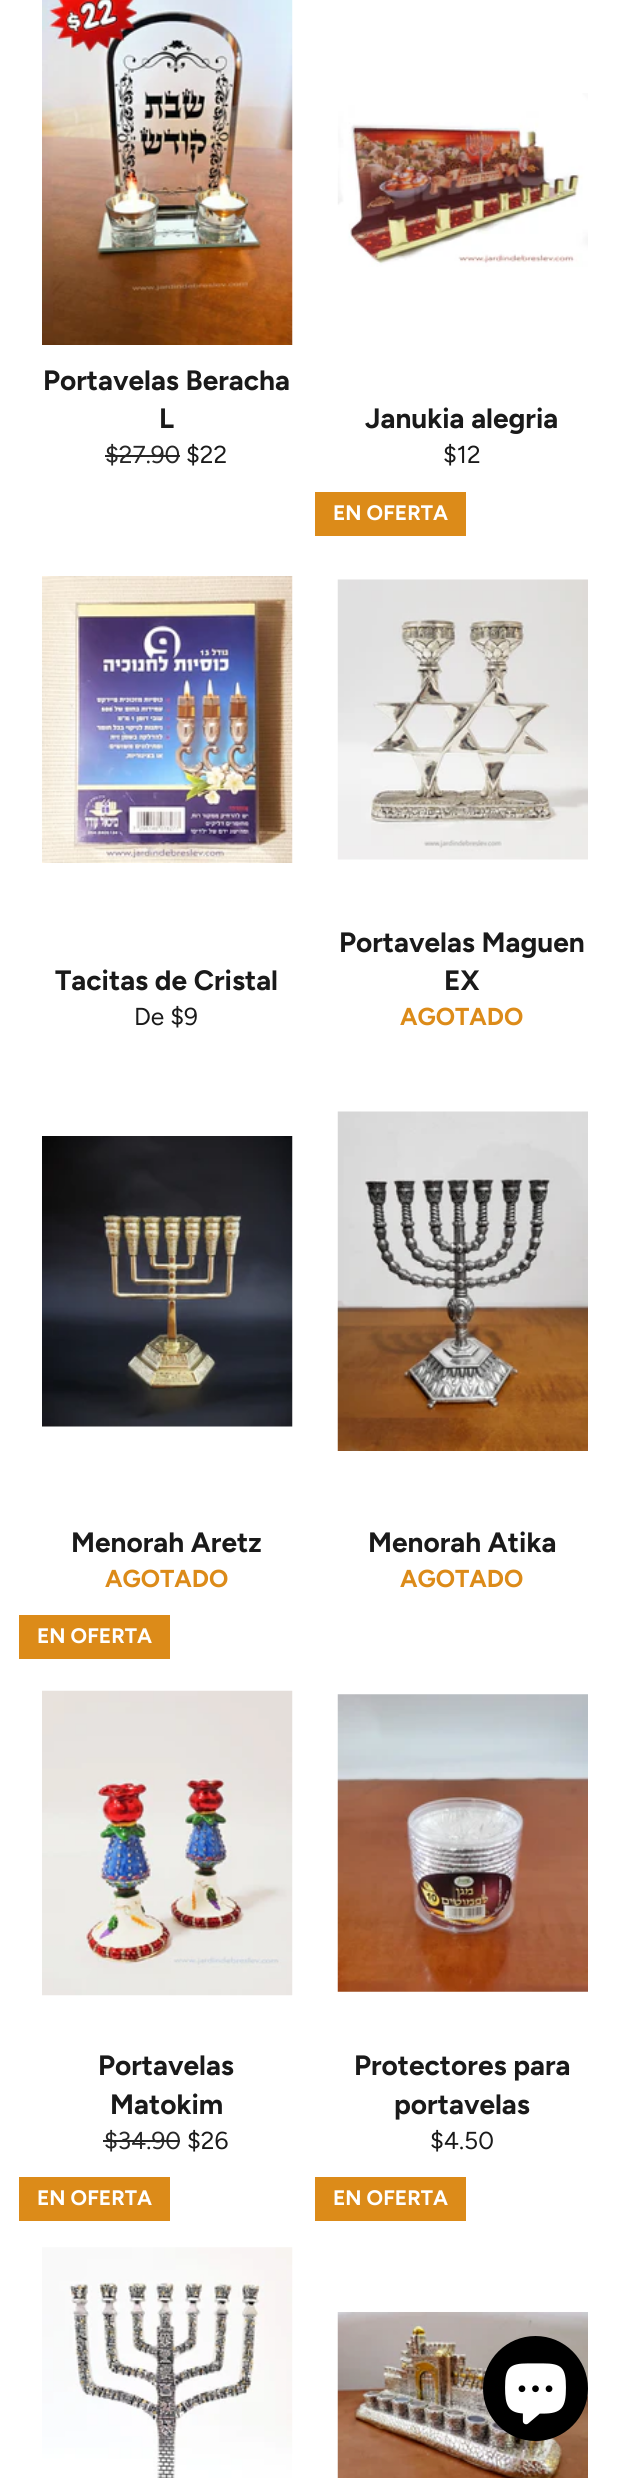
#include <cairo.h>
#include <math.h>
#include <stddef.h>


static void ink(cairo_t *ctx, unsigned color) {
    cairo_set_source_rgb(ctx, (color >> 16) / 255.0, (color >> 8 & 255) / 255.0, (color & 255) / 255.0);
}

static void paste(cairo_t *ctx, const char *path, double x, double y, double w, double h) {
    cairo_surface_t *image = cairo_image_surface_create_from_png(path);
    cairo_save(ctx);
    cairo_set_source_surface(ctx, image, x, y);
    cairo_rectangle(ctx, x, y, w, h);
    cairo_fill(ctx);
    cairo_restore(ctx);
    cairo_surface_destroy(image);
}

int main(void) {
    cairo_surface_t *surface = cairo_image_surface_create(CAIRO_FORMAT_RGB24, 626, 2478);
    cairo_t *ctx = cairo_create(surface);
    cairo_font_options_t *options = cairo_font_options_create();
    cairo_font_options_set_hint_metrics(options, CAIRO_HINT_METRICS_OFF);
    cairo_font_options_set_hint_style(options, CAIRO_HINT_STYLE_NONE);
    cairo_set_font_options(ctx, options);
    cairo_set_miter_limit(ctx, 4);
    ink(ctx, 0xFFFFFF);
    cairo_paint(ctx);
    paste(ctx, "media/1.png", 42, 0, 251, 345);
    cairo_select_font_face(ctx, "Figtree", CAIRO_FONT_SLANT_NORMAL, CAIRO_FONT_WEIGHT_BOLD);
    cairo_set_font_size(ctx, 28);
    ink(ctx, 0x1A1A1A);
    cairo_move_to(ctx, 43, 390);
    cairo_show_text(ctx, "Portavelas Beracha");
    cairo_move_to(ctx, 159, 428);
    cairo_show_text(ctx, "L");
    cairo_select_font_face(ctx, "Figtree", CAIRO_FONT_SLANT_NORMAL, CAIRO_FONT_WEIGHT_NORMAL);
    cairo_set_font_size(ctx, 24.5);
    ink(ctx, 0x272727);
    cairo_move_to(ctx, 105, 463);
    cairo_show_text(ctx, "$27.90");
    cairo_rectangle(ctx, 105, 455, 75, 2);
    cairo_fill(ctx);
    ink(ctx, 0x1A1A1A);
    cairo_move_to(ctx, 186, 463);
    cairo_show_text(ctx, "$22");
    paste(ctx, "media/2.png", 337, 93, 251, 174);
    cairo_select_font_face(ctx, "Figtree", CAIRO_FONT_SLANT_NORMAL, CAIRO_FONT_WEIGHT_BOLD);
    cairo_set_font_size(ctx, 28);
    cairo_move_to(ctx, 365, 428);
    cairo_show_text(ctx, "Janukia alegria");
    cairo_select_font_face(ctx, "Figtree", CAIRO_FONT_SLANT_NORMAL, CAIRO_FONT_WEIGHT_NORMAL);
    cairo_set_font_size(ctx, 24.5);
    cairo_move_to(ctx, 443, 463);
    cairo_show_text(ctx, "$12");
    paste(ctx, "media/3.png", 42, 576, 251, 287);
    cairo_select_font_face(ctx, "Figtree", CAIRO_FONT_SLANT_NORMAL, CAIRO_FONT_WEIGHT_BOLD);
    cairo_set_font_size(ctx, 28);
    cairo_move_to(ctx, 55, 990);
    cairo_show_text(ctx, "Tacitas de Cristal");
    cairo_select_font_face(ctx, "Figtree", CAIRO_FONT_SLANT_NORMAL, CAIRO_FONT_WEIGHT_NORMAL);
    cairo_set_font_size(ctx, 24.5);
    cairo_move_to(ctx, 134, 1025);
    cairo_show_text(ctx, "De $9");
    ink(ctx, 0xDC8B19);
    cairo_rectangle(ctx, 315, 492, 151, 44);
    cairo_fill(ctx);
    cairo_select_font_face(ctx, "Figtree", CAIRO_FONT_SLANT_NORMAL, CAIRO_FONT_WEIGHT_BOLD);
    cairo_set_font_size(ctx, 21);
    ink(ctx, 0xFFFFFF);
    cairo_move_to(ctx, 333, 520);
    cairo_show_text(ctx, "EN OFERTA");
    paste(ctx, "media/4.png", 337, 579, 251, 281);
    cairo_set_font_size(ctx, 28);
    ink(ctx, 0x1A1A1A);
    cairo_move_to(ctx, 339, 952);
    cairo_show_text(ctx, "Portavelas Maguen");
    cairo_move_to(ctx, 444, 990);
    cairo_show_text(ctx, "EX");
    cairo_set_font_size(ctx, 24.5);
    ink(ctx, 0xDC8B19);
    cairo_move_to(ctx, 400, 1025);
    cairo_show_text(ctx, "AGOTADO");
    paste(ctx, "media/5.png", 42, 1136, 251, 291);
    cairo_set_font_size(ctx, 28);
    ink(ctx, 0x1A1A1A);
    cairo_move_to(ctx, 71, 1552);
    cairo_show_text(ctx, "Menorah Aretz");
    cairo_set_font_size(ctx, 24.5);
    ink(ctx, 0xDC8B19);
    cairo_move_to(ctx, 105, 1587);
    cairo_show_text(ctx, "AGOTADO");
    paste(ctx, "media/6.png", 337, 1111, 251, 340);
    cairo_set_font_size(ctx, 28);
    ink(ctx, 0x1A1A1A);
    cairo_move_to(ctx, 368, 1552);
    cairo_show_text(ctx, "Menorah Atika");
    cairo_set_font_size(ctx, 24.5);
    ink(ctx, 0xDC8B19);
    cairo_move_to(ctx, 400, 1587);
    cairo_show_text(ctx, "AGOTADO");
    cairo_rectangle(ctx, 19, 1615, 151, 44);
    cairo_fill(ctx);
    cairo_set_font_size(ctx, 21);
    ink(ctx, 0xFFFFFF);
    cairo_move_to(ctx, 37, 1643);
    cairo_show_text(ctx, "EN OFERTA");
    paste(ctx, "media/7.png", 42, 1690, 251, 306);
    cairo_set_font_size(ctx, 28);
    ink(ctx, 0x1A1A1A);
    cairo_move_to(ctx, 98, 2075);
    cairo_show_text(ctx, "Portavelas");
    cairo_move_to(ctx, 110, 2114);
    cairo_show_text(ctx, "Matokim");
    cairo_select_font_face(ctx, "Figtree", CAIRO_FONT_SLANT_NORMAL, CAIRO_FONT_WEIGHT_NORMAL);
    cairo_set_font_size(ctx, 24.5);
    ink(ctx, 0x272727);
    cairo_move_to(ctx, 104, 2149);
    cairo_show_text(ctx, "$34.90");
    cairo_rectangle(ctx, 103, 2140, 77, 2);
    cairo_fill(ctx);
    ink(ctx, 0x1A1A1A);
    cairo_move_to(ctx, 187, 2149);
    cairo_show_text(ctx, "$26");
    paste(ctx, "media/8.png", 337, 1694, 251, 298);
    cairo_select_font_face(ctx, "Figtree", CAIRO_FONT_SLANT_NORMAL, CAIRO_FONT_WEIGHT_BOLD);
    cairo_set_font_size(ctx, 28);
    cairo_move_to(ctx, 354, 2075);
    cairo_show_text(ctx, "Protectores para");
    cairo_move_to(ctx, 394, 2114);
    cairo_show_text(ctx, "portavelas");
    cairo_select_font_face(ctx, "Figtree", CAIRO_FONT_SLANT_NORMAL, CAIRO_FONT_WEIGHT_NORMAL);
    cairo_set_font_size(ctx, 24.5);
    cairo_move_to(ctx, 430, 2149);
    cairo_show_text(ctx, "$4.50");
    ink(ctx, 0xDC8B19);
    cairo_rectangle(ctx, 19, 2177, 151, 44);
    cairo_fill(ctx);
    cairo_select_font_face(ctx, "Figtree", CAIRO_FONT_SLANT_NORMAL, CAIRO_FONT_WEIGHT_BOLD);
    cairo_set_font_size(ctx, 21);
    ink(ctx, 0xFFFFFF);
    cairo_move_to(ctx, 37, 2205);
    cairo_show_text(ctx, "EN OFERTA");
    paste(ctx, "media/9.png", 42, 2247, 251, 231);
    ink(ctx, 0xDC8B19);
    cairo_rectangle(ctx, 315, 2177, 151, 44);
    cairo_fill(ctx);
    ink(ctx, 0xFFFFFF);
    cairo_move_to(ctx, 333, 2205);
    cairo_show_text(ctx, "EN OFERTA");
    paste(ctx, "media/10.png", 337, 2312, 251, 166);
    ink(ctx, 0x000000);
    cairo_arc(ctx, 535.5, 2388.5, 52.5, 0, 2 * M_PI);
    cairo_fill(ctx);
    paste(ctx, "media/11.png", 505, 2363, 61, 62);
    cairo_surface_write_to_png(surface, "image.png");
    cairo_font_options_destroy(options);
    cairo_destroy(ctx);
    cairo_surface_destroy(surface);
    return 0;
}
